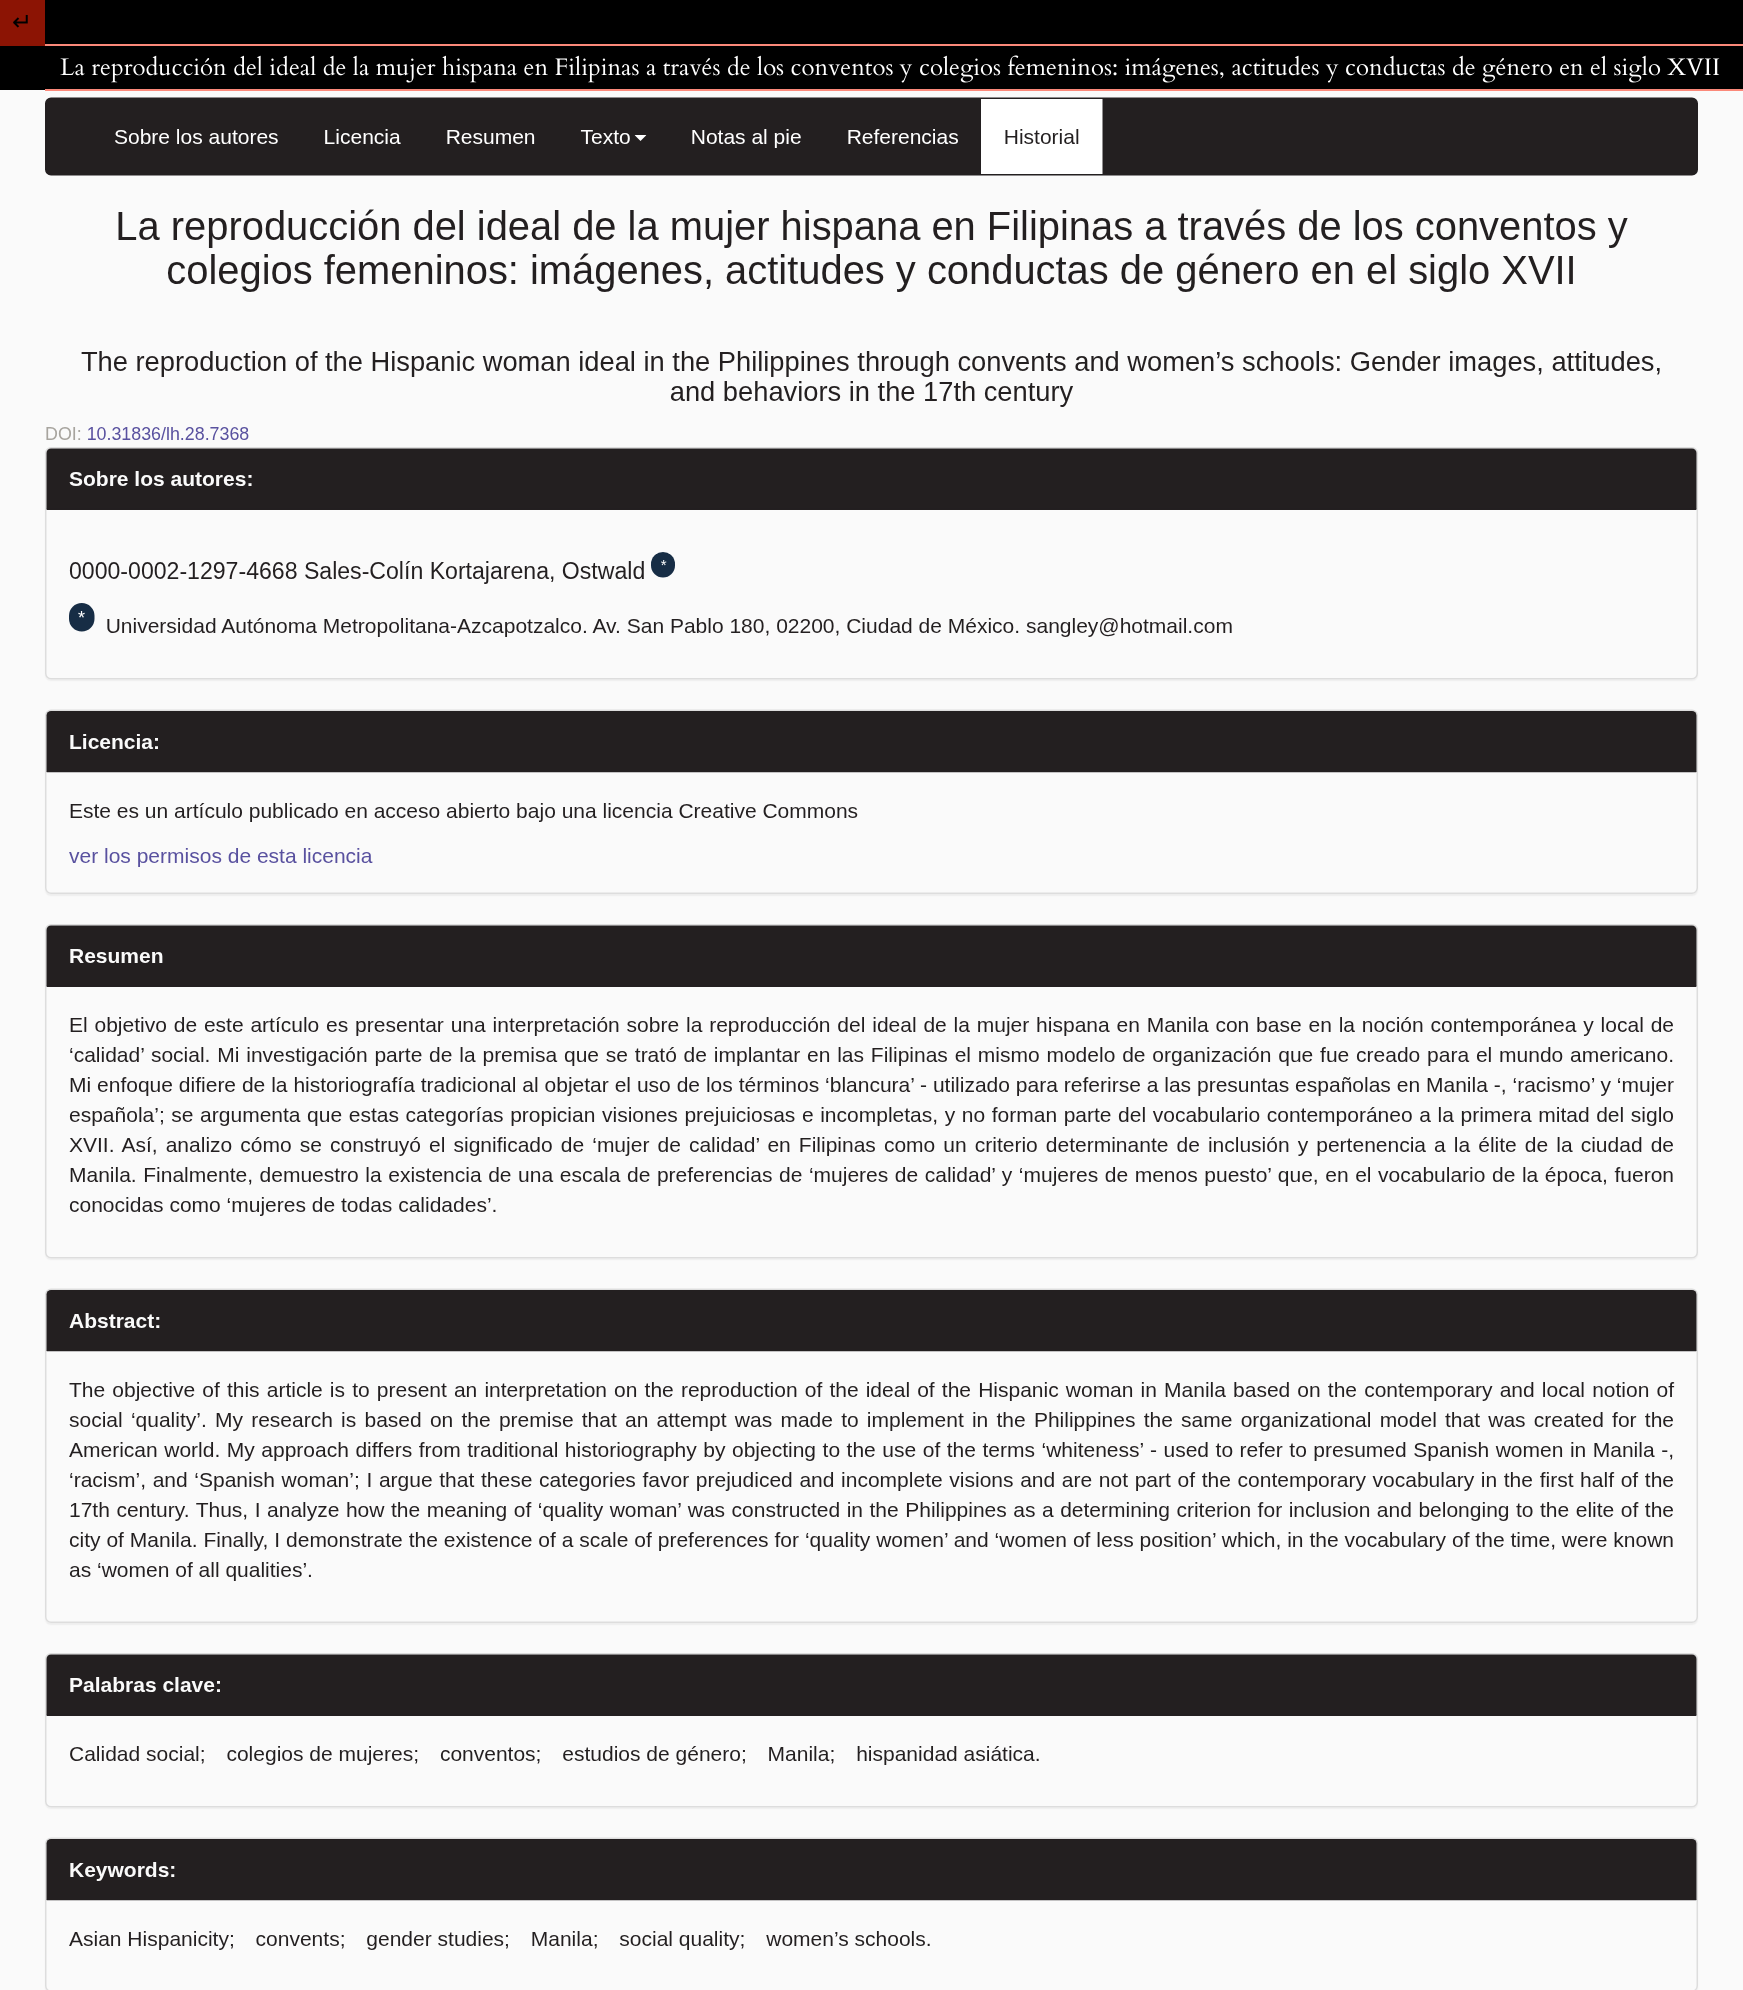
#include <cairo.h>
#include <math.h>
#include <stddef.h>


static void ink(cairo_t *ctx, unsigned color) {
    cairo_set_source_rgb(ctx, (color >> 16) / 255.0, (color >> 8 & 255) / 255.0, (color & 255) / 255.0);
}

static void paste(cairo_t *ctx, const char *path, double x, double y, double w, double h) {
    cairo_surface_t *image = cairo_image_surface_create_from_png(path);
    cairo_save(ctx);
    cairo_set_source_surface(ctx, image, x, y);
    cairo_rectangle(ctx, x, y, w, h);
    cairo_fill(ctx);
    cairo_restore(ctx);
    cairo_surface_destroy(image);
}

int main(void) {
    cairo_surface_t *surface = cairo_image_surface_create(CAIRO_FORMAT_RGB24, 1743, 1990);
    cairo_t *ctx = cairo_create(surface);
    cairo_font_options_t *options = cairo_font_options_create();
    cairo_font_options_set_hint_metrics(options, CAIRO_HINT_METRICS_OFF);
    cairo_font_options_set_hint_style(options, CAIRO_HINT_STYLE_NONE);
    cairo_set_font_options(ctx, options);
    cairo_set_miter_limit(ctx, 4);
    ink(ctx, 0xFFFFFF);
    cairo_paint(ctx);
    ink(ctx, 0x000000);
    cairo_rectangle(ctx, 0, 0, 1743, 90);
    cairo_fill(ctx);
    ink(ctx, 0x8C1404);
    cairo_rectangle(ctx, 0, 0, 45, 46);
    cairo_fill(ctx);
    cairo_select_font_face(ctx, "DejaVu Sans", CAIRO_FONT_SLANT_NORMAL, CAIRO_FONT_WEIGHT_NORMAL);
    cairo_set_font_size(ctx, 24);
    ink(ctx, 0x000000);
    cairo_move_to(ctx, 12, 30);
    cairo_show_text(ctx, "↵");
    ink(ctx, 0xFB897A);
    cairo_rectangle(ctx, 45, 44, 1698, 2);
    cairo_fill(ctx);
    paste(ctx, "media/1.png", 0, 90, 1743, 1900);
    cairo_rectangle(ctx, 45, 89, 1698, 2);
    cairo_fill(ctx);
    cairo_select_font_face(ctx, "Cardo", CAIRO_FONT_SLANT_NORMAL, CAIRO_FONT_WEIGHT_NORMAL);
    ink(ctx, 0xFFFFFF);
    cairo_move_to(ctx, 60, 75);
    cairo_show_text(ctx, "La reproducción del ideal de la mujer hispana en Filipinas a través de los conventos y colegios femeninos: imágenes, actitudes y conductas de género en el siglo XVII");
    cairo_surface_write_to_png(surface, "image.png");
    cairo_font_options_destroy(options);
    cairo_destroy(ctx);
    cairo_surface_destroy(surface);
    return 0;
}
